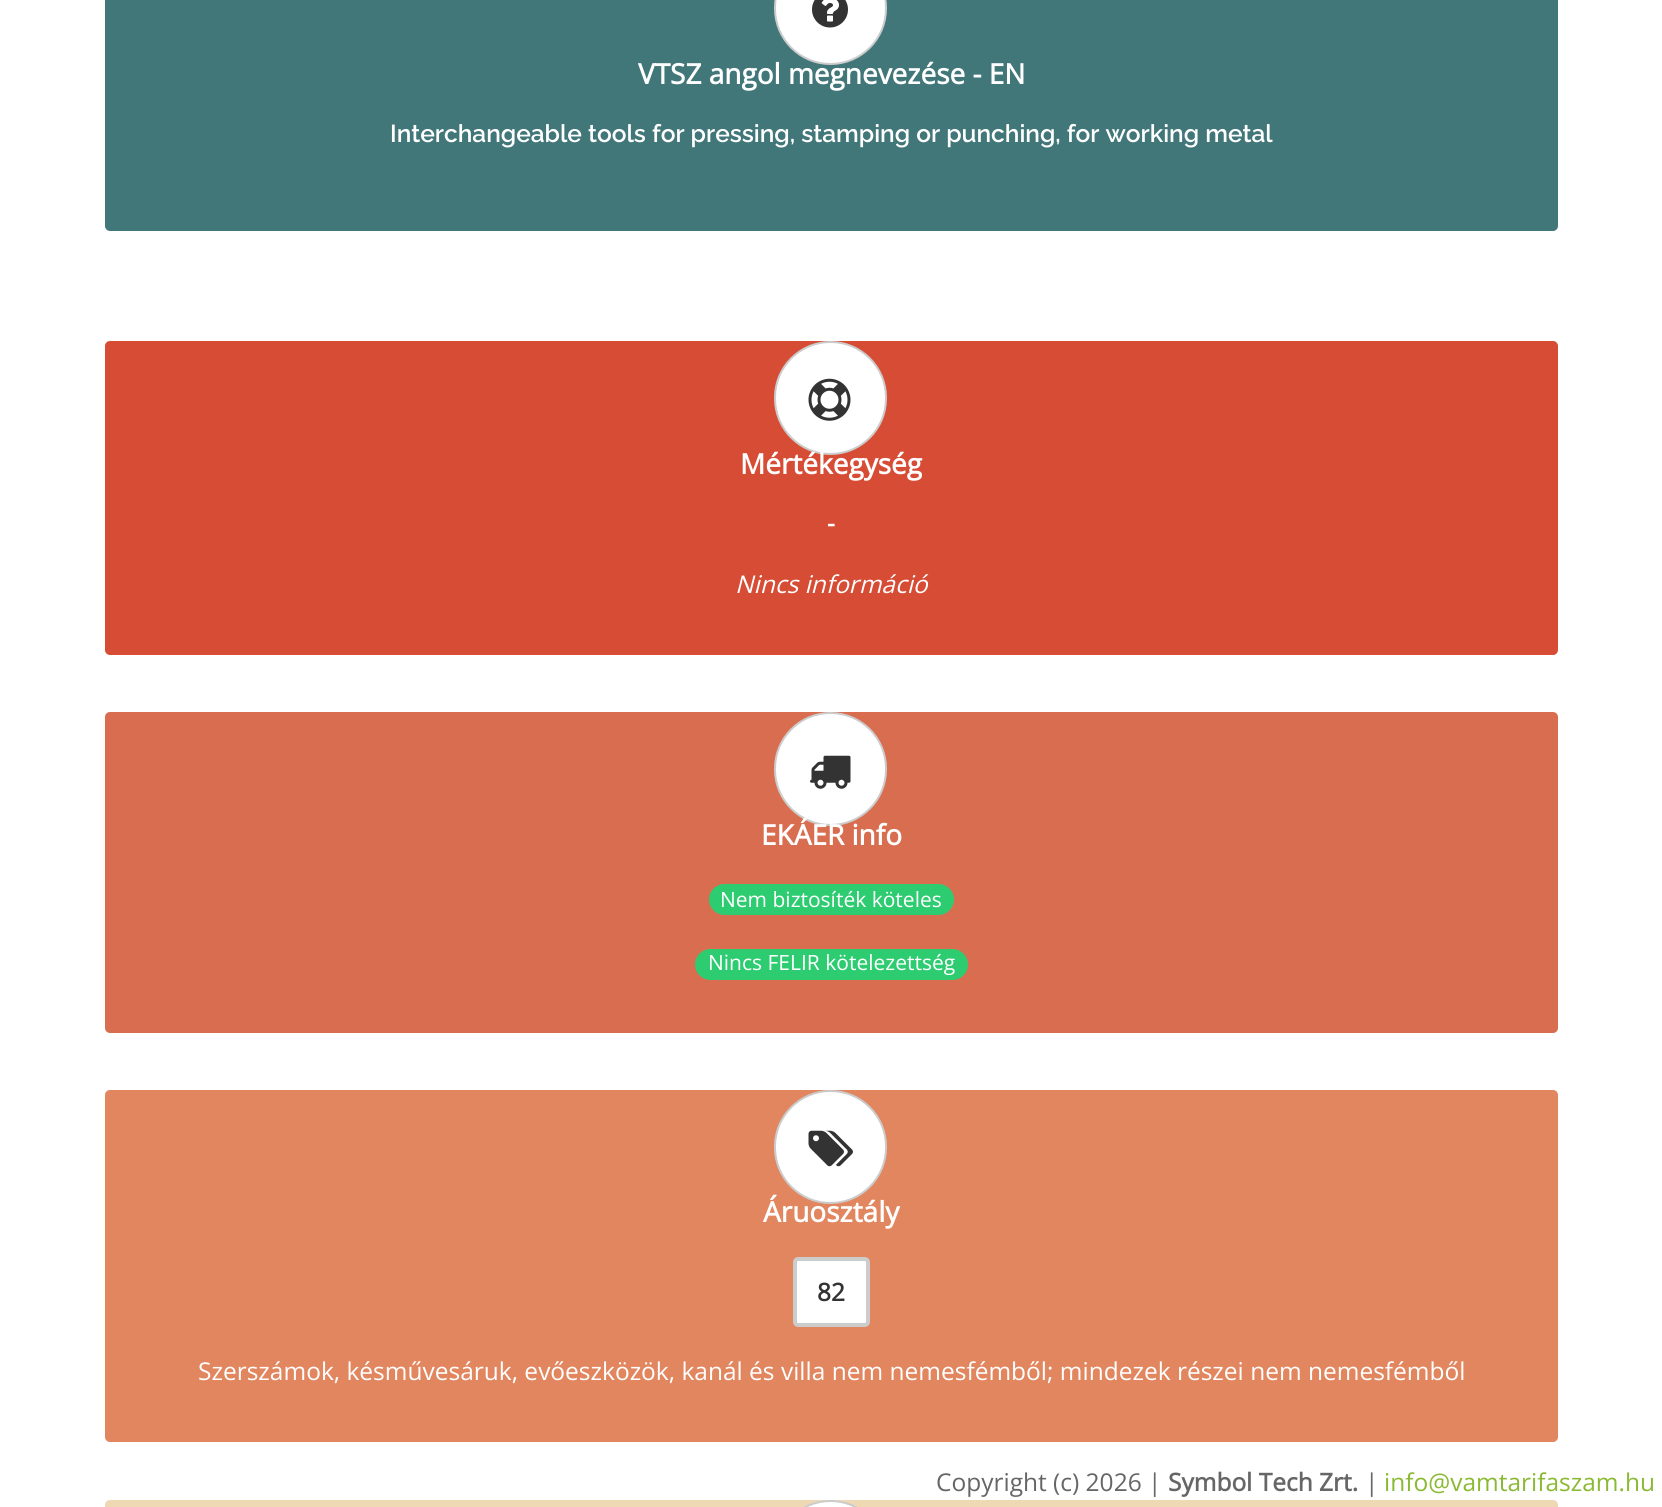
#include <cairo.h>
#include <math.h>
#include <stddef.h>


static void ink(cairo_t *ctx, unsigned color) {
    cairo_set_source_rgb(ctx, (color >> 16) / 255.0, (color >> 8 & 255) / 255.0, (color & 255) / 255.0);
}

static void round_path(cairo_t *ctx, double x, double y, double w, double h, double r) {
    cairo_new_sub_path(ctx);
    cairo_arc(ctx, x + w - r, y + h - r, r, 0, M_PI / 2);
    cairo_arc(ctx, x + r, y + h - r, r, M_PI / 2, M_PI);
    cairo_arc(ctx, x + r, y + r, r, M_PI, 1.5 * M_PI);
    cairo_arc(ctx, x + w - r, y + r, r, 1.5 * M_PI, 2 * M_PI);
    cairo_close_path(ctx);
}

static void paste(cairo_t *ctx, const char *path, double x, double y, double w, double h) {
    cairo_surface_t *image = cairo_image_surface_create_from_png(path);
    cairo_save(ctx);
    cairo_set_source_surface(ctx, image, x, y);
    cairo_rectangle(ctx, x, y, w, h);
    cairo_fill(ctx);
    cairo_restore(ctx);
    cairo_surface_destroy(image);
}

int main(void) {
    cairo_surface_t *surface = cairo_image_surface_create(CAIRO_FORMAT_RGB24, 1662, 1507);
    cairo_t *ctx = cairo_create(surface);
    cairo_font_options_t *options = cairo_font_options_create();
    cairo_font_options_set_hint_metrics(options, CAIRO_HINT_METRICS_OFF);
    cairo_font_options_set_hint_style(options, CAIRO_HINT_STYLE_NONE);
    cairo_set_font_options(ctx, options);
    cairo_set_miter_limit(ctx, 4);
    ink(ctx, 0xFFFFFF);
    cairo_paint(ctx);
    ink(ctx, 0x42777A);
    round_path(ctx, 105, -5, 1453, 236, 5);
    cairo_fill(ctx);
    ink(ctx, 0xFFFFFF);
    round_path(ctx, 775, -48, 111, 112, 55.5);
    cairo_fill_preserve(ctx);
    ink(ctx, 0xCCCCCC);
    cairo_stroke(ctx);
    paste(ctx, "media/1.png", 812, 0, 36, 28);
    cairo_select_font_face(ctx, "Open Sans", CAIRO_FONT_SLANT_NORMAL, CAIRO_FONT_WEIGHT_BOLD);
    cairo_set_font_size(ctx, 28);
    ink(ctx, 0xFFFFFF);
    cairo_move_to(ctx, 638, 84);
    cairo_show_text(ctx, "VTSZ angol megnevezése - EN");
    cairo_select_font_face(ctx, "Raleway SemiBold", CAIRO_FONT_SLANT_NORMAL, CAIRO_FONT_WEIGHT_NORMAL);
    cairo_set_font_size(ctx, 24.5);
    cairo_move_to(ctx, 390, 142);
    cairo_show_text(ctx, "Interchangeable tools for pressing, stamping or punching, for working metal");
    ink(ctx, 0xD74C35);
    round_path(ctx, 105, 341, 1453, 314, 5);
    cairo_fill(ctx);
    ink(ctx, 0xFFFFFF);
    round_path(ctx, 775, 342, 111, 112, 55.5);
    cairo_fill_preserve(ctx);
    ink(ctx, 0xCCCCCC);
    cairo_stroke(ctx);
    paste(ctx, "media/2.png", 808, 378, 43, 43);
    cairo_select_font_face(ctx, "Open Sans", CAIRO_FONT_SLANT_NORMAL, CAIRO_FONT_WEIGHT_BOLD);
    cairo_set_font_size(ctx, 28);
    ink(ctx, 0xFFFFFF);
    cairo_move_to(ctx, 740, 474);
    cairo_show_text(ctx, "Mértékegység");
    cairo_set_font_size(ctx, 24.5);
    cairo_move_to(ctx, 827, 532);
    cairo_show_text(ctx, "-");
    cairo_select_font_face(ctx, "Open Sans", CAIRO_FONT_SLANT_ITALIC, CAIRO_FONT_WEIGHT_NORMAL);
    cairo_move_to(ctx, 735, 593);
    cairo_show_text(ctx, "Nincs információ");
    ink(ctx, 0xD96D4F);
    round_path(ctx, 105, 712, 1453, 321, 5);
    cairo_fill(ctx);
    ink(ctx, 0xFFFFFF);
    round_path(ctx, 775, 713, 111, 112, 55.5);
    cairo_fill_preserve(ctx);
    ink(ctx, 0xCCCCCC);
    cairo_stroke(ctx);
    paste(ctx, "media/3.png", 810, 755, 41, 34);
    cairo_select_font_face(ctx, "Open Sans", CAIRO_FONT_SLANT_NORMAL, CAIRO_FONT_WEIGHT_BOLD);
    cairo_set_font_size(ctx, 28);
    ink(ctx, 0xFFFFFF);
    cairo_move_to(ctx, 761, 845);
    cairo_show_text(ctx, "EKÁER info");
    ink(ctx, 0x2ECC71);
    round_path(ctx, 709, 884, 245, 31, 15.5);
    cairo_fill(ctx);
    cairo_select_font_face(ctx, "Open Sans", CAIRO_FONT_SLANT_NORMAL, CAIRO_FONT_WEIGHT_NORMAL);
    cairo_set_font_size(ctx, 21);
    ink(ctx, 0xFFFFFF);
    cairo_move_to(ctx, 720, 907);
    cairo_show_text(ctx, "Nem biztosíték köteles");
    ink(ctx, 0x2ECC71);
    round_path(ctx, 695, 949, 273, 31, 15.5);
    cairo_fill(ctx);
    ink(ctx, 0xFFFFFF);
    cairo_move_to(ctx, 708, 970);
    cairo_show_text(ctx, "Nincs FELIR kötelezettség");
    ink(ctx, 0xE1865E);
    round_path(ctx, 105, 1090, 1453, 352, 5);
    cairo_fill(ctx);
    ink(ctx, 0xFFFFFF);
    round_path(ctx, 775, 1091, 111, 112, 55.5);
    cairo_fill_preserve(ctx);
    ink(ctx, 0xCCCCCC);
    cairo_stroke(ctx);
    paste(ctx, "media/4.png", 808, 1130, 45, 37);
    cairo_select_font_face(ctx, "Open Sans", CAIRO_FONT_SLANT_NORMAL, CAIRO_FONT_WEIGHT_BOLD);
    cairo_set_font_size(ctx, 28);
    ink(ctx, 0xFFFFFF);
    cairo_move_to(ctx, 763, 1222);
    cairo_show_text(ctx, "Áruosztály");
    round_path(ctx, 795, 1259, 73, 66, 3);
    cairo_fill_preserve(ctx);
    ink(ctx, 0xCCCCCC);
    cairo_set_line_width(ctx, 4);
    cairo_stroke(ctx);
    cairo_set_font_size(ctx, 24.5);
    ink(ctx, 0x333333);
    cairo_move_to(ctx, 817, 1301);
    cairo_show_text(ctx, "82");
    cairo_select_font_face(ctx, "Open Sans", CAIRO_FONT_SLANT_NORMAL, CAIRO_FONT_WEIGHT_NORMAL);
    ink(ctx, 0xFFFFFF);
    cairo_move_to(ctx, 198, 1380);
    cairo_show_text(ctx, "Szerszámok, késművesáruk, evőeszközök, kanál és villa nem nemesfémből; mindezek részei nem nemesfémből");
    ink(ctx, 0xEFD9B5);
    round_path(ctx, 105, 1500, 1453, 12, 5);
    cairo_fill(ctx);
    ink(ctx, 0xFFFFFF);
    round_path(ctx, 775, 1501, 111, 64, 55.5);
    cairo_fill_preserve(ctx);
    ink(ctx, 0xCCCCCC);
    cairo_set_line_width(ctx, 2);
    cairo_stroke(ctx);
    ink(ctx, 0x666666);
    cairo_move_to(ctx, 936, 1491);
    cairo_show_text(ctx, "Copyright (c) 2026 |");
    cairo_select_font_face(ctx, "Open Sans", CAIRO_FONT_SLANT_NORMAL, CAIRO_FONT_WEIGHT_BOLD);
    cairo_move_to(ctx, 1168, 1491);
    cairo_show_text(ctx, "Symbol Tech Zrt.");
    cairo_select_font_face(ctx, "Open Sans", CAIRO_FONT_SLANT_NORMAL, CAIRO_FONT_WEIGHT_NORMAL);
    cairo_move_to(ctx, 1365, 1491);
    cairo_show_text(ctx, "|");
    ink(ctx, 0x8AB933);
    cairo_move_to(ctx, 1384, 1491);
    cairo_show_text(ctx, "info@vamtarifaszam.hu");
    cairo_surface_write_to_png(surface, "image.png");
    cairo_font_options_destroy(options);
    cairo_destroy(ctx);
    cairo_surface_destroy(surface);
    return 0;
}
